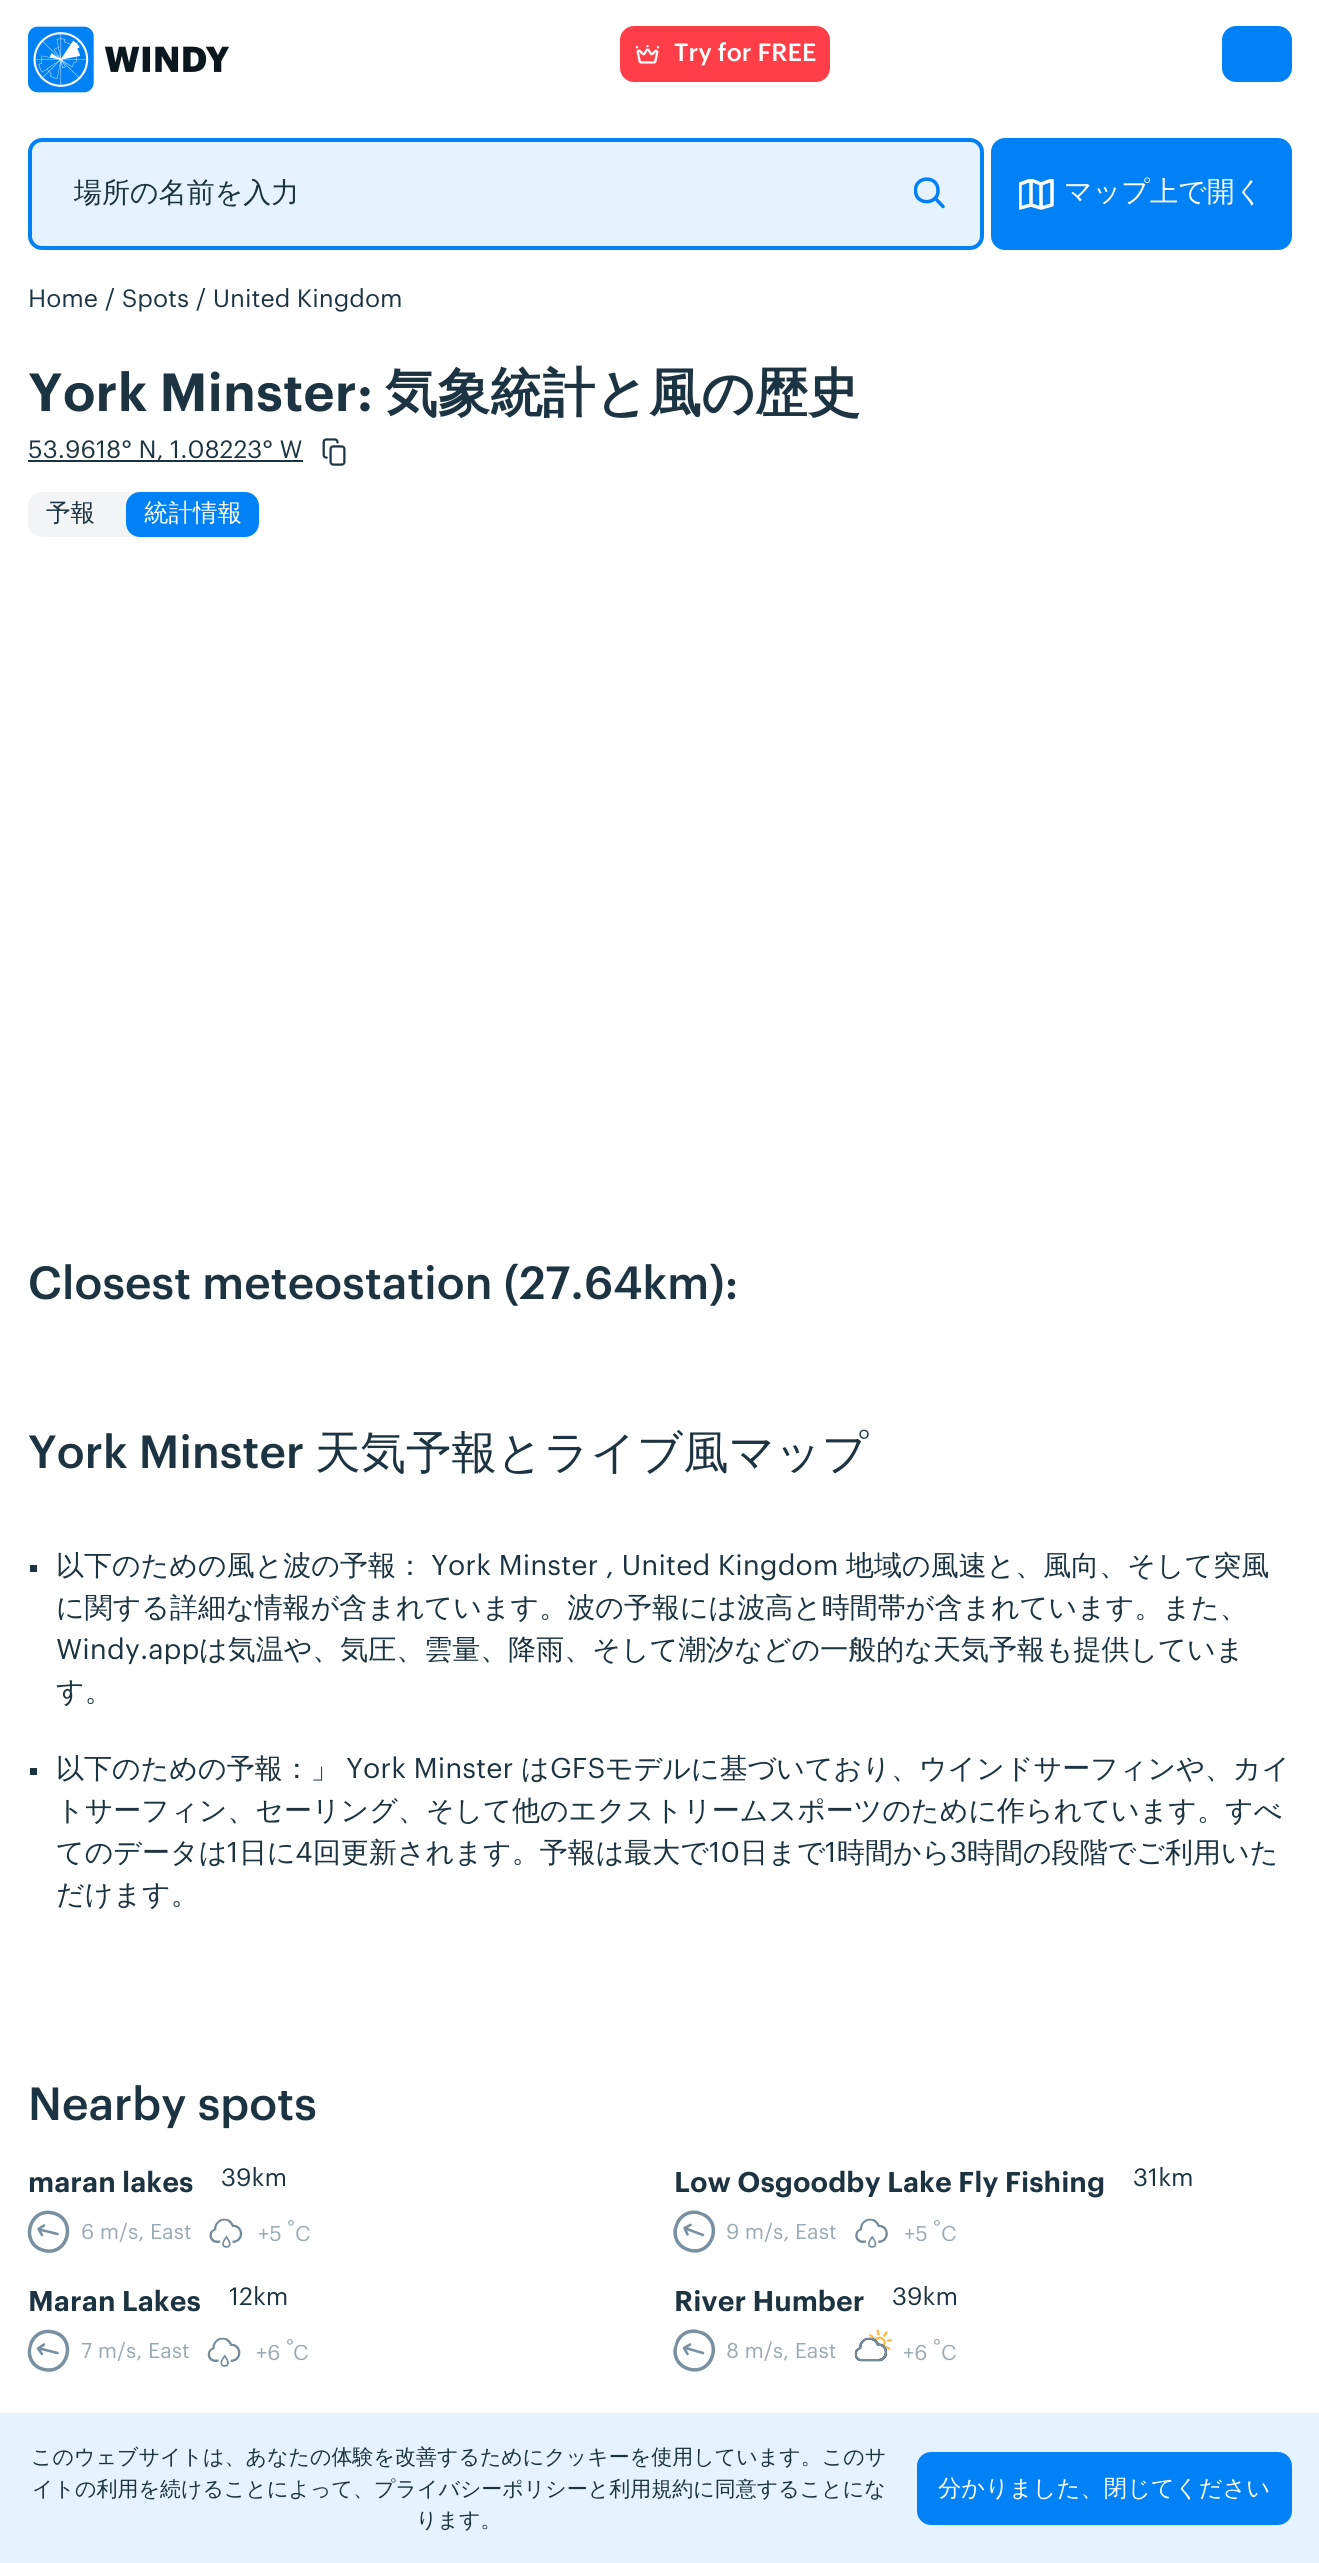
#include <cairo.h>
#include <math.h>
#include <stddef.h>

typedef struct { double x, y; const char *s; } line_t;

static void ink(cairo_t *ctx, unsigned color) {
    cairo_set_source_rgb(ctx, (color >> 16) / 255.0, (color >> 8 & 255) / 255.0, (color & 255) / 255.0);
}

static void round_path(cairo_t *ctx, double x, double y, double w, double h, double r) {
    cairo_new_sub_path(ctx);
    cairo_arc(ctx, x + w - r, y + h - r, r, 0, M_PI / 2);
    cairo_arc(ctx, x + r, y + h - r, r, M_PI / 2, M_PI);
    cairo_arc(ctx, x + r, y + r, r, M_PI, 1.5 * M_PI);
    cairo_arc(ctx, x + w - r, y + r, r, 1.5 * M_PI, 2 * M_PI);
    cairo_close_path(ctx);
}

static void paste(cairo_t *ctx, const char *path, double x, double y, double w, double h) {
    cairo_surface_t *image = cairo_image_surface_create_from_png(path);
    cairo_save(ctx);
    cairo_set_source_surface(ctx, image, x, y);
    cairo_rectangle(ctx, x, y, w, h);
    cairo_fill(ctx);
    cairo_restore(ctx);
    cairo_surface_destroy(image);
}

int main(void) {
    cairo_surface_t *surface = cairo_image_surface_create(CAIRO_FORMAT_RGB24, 1319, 2563);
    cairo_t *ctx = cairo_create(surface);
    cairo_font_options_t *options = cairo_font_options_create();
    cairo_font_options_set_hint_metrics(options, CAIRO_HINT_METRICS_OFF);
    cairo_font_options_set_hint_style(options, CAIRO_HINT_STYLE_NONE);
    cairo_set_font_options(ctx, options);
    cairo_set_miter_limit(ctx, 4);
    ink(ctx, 0xFFFFFF);
    cairo_paint(ctx);
    paste(ctx, "media/1.png", 28, 26, 201, 67);
    ink(ctx, 0xFF3E47);
    round_path(ctx, 620, 26, 210, 56, 14);
    cairo_fill(ctx);
    paste(ctx, "media/2.png", 635, 44, 25, 20);
    cairo_select_font_face(ctx, "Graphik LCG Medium", CAIRO_FONT_SLANT_NORMAL, CAIRO_FONT_WEIGHT_NORMAL);
    cairo_set_font_size(ctx, 24.5);
    ink(ctx, 0xFFFFFF);
    cairo_move_to(ctx, 674, 61);
    cairo_show_text(ctx, "Try for FREE");
    ink(ctx, 0x0081F6);
    round_path(ctx, 1222, 26, 70, 56, 14);
    cairo_fill(ctx);
    ink(ctx, 0xE6F3FE);
    round_path(ctx, 30, 140, 952, 108, 12);
    cairo_fill_preserve(ctx);
    ink(ctx, 0x0081F6);
    cairo_set_line_width(ctx, 4);
    cairo_stroke(ctx);
    cairo_save(ctx);
    cairo_rectangle(ctx, 74, 177, 864, 37);
    cairo_clip(ctx);
    cairo_select_font_face(ctx, "WenQuanYi Zen Hei Medium", CAIRO_FONT_SLANT_NORMAL, CAIRO_FONT_WEIGHT_NORMAL);
    cairo_set_font_size(ctx, 28);
    ink(ctx, 0x1C3341);
    cairo_move_to(ctx, 74, 202);
    cairo_show_text(ctx, "場所の名前を入力");
    cairo_restore(ctx);
    cairo_save(ctx);
    cairo_rectangle(ctx, 914, 177, 35, 35);
    cairo_clip(ctx);
    cairo_new_path(ctx);
    cairo_move_to(ctx, 935, 198);
    cairo_line_to(ctx, 943, 206.5);
    cairo_move_to(ctx, 938, 190);
    cairo_curve_to(ctx, 939, 204.5, 916.5, 206, 915.5, 191.5);
    cairo_curve_to(ctx, 914, 176, 937.5, 174.5, 938, 190);
    cairo_set_line_width(ctx, 3.5);
    cairo_set_line_cap(ctx, CAIRO_LINE_CAP_ROUND);
    cairo_set_line_join(ctx, CAIRO_LINE_JOIN_ROUND);
    cairo_stroke(ctx);
    cairo_restore(ctx);
    round_path(ctx, 991, 138, 301, 112, 14);
    cairo_fill(ctx);
    cairo_save(ctx);
    cairo_rectangle(ctx, 1019, 179, 35, 31);
    cairo_clip(ctx);
    cairo_new_path(ctx);
    cairo_move_to(ctx, 1031, 180);
    cairo_line_to(ctx, 1020, 184);
    cairo_line_to(ctx, 1020, 208);
    cairo_line_to(ctx, 1031, 205);
    cairo_move_to(ctx, 1031, 180);
    cairo_line_to(ctx, 1031, 205);
    cairo_move_to(ctx, 1031, 180);
    cairo_line_to(ctx, 1041, 184);
    cairo_move_to(ctx, 1031, 205);
    cairo_line_to(ctx, 1041, 208);
    cairo_move_to(ctx, 1041, 184);
    cairo_line_to(ctx, 1041, 208);
    cairo_move_to(ctx, 1041, 184);
    cairo_line_to(ctx, 1052, 180);
    cairo_line_to(ctx, 1052, 205);
    cairo_line_to(ctx, 1041, 208);
    ink(ctx, 0xFFFFFF);
    cairo_set_line_width(ctx, 3.5);
    cairo_set_line_cap(ctx, CAIRO_LINE_CAP_ROUND);
    cairo_set_line_join(ctx, CAIRO_LINE_JOIN_ROUND);
    cairo_stroke(ctx);
    cairo_restore(ctx);
    cairo_select_font_face(ctx, "WenQuanYi Zen Hei Medium", CAIRO_FONT_SLANT_NORMAL, CAIRO_FONT_WEIGHT_NORMAL);
    cairo_set_font_size(ctx, 28);
    ink(ctx, 0xFFFFFF);
    cairo_move_to(ctx, 1064, 201);
    cairo_show_text(ctx, "マップ上で開く");
    cairo_select_font_face(ctx, "Graphik LCG", CAIRO_FONT_SLANT_NORMAL, CAIRO_FONT_WEIGHT_NORMAL);
    cairo_set_font_size(ctx, 24.5);
    ink(ctx, 0x1C3341);
    {
        static const line_t items[] = {
            {28, 307, "Home"},
            {105, 307, "/ Spots"},
            {196, 307, "/ United Kingdom"},
        };
        for (size_t i = 0; i < sizeof items / sizeof *items; i++) {
            cairo_move_to(ctx, items[i].x, items[i].y);
            cairo_show_text(ctx, items[i].s);
        }
    }
    cairo_select_font_face(ctx, "Graphik LCG SemiBold", CAIRO_FONT_SLANT_NORMAL, CAIRO_FONT_WEIGHT_NORMAL);
    cairo_set_font_size(ctx, 52.5);
    cairo_move_to(ctx, 28, 411);
    cairo_show_text(ctx, "York Minster:");
    cairo_select_font_face(ctx, "WenQuanYi Zen Hei", CAIRO_FONT_SLANT_NORMAL, CAIRO_FONT_WEIGHT_BOLD);
    cairo_move_to(ctx, 385, 411);
    cairo_show_text(ctx, "気象統計と風の歴史");
    cairo_rectangle(ctx, 28, 460, 275, 2);
    cairo_fill(ctx);
    cairo_select_font_face(ctx, "Graphik LCG", CAIRO_FONT_SLANT_NORMAL, CAIRO_FONT_WEIGHT_NORMAL);
    cairo_set_font_size(ctx, 24.5);
    cairo_move_to(ctx, 28, 458);
    cairo_show_text(ctx, "53.9618° N, 1.08223° W");
    paste(ctx, "media/3.png", 322, 438, 24, 28);
    ink(ctx, 0xF2F4F6);
    round_path(ctx, 28, 492, 231, 45, 14);
    cairo_fill(ctx);
    cairo_select_font_face(ctx, "WenQuanYi Zen Hei Medium", CAIRO_FONT_SLANT_NORMAL, CAIRO_FONT_WEIGHT_NORMAL);
    ink(ctx, 0x1C3341);
    cairo_move_to(ctx, 46, 521);
    cairo_show_text(ctx, "予報");
    ink(ctx, 0x0081F6);
    round_path(ctx, 126, 492, 133, 45, 14);
    cairo_fill(ctx);
    ink(ctx, 0xFFFFFF);
    cairo_move_to(ctx, 144, 521);
    cairo_show_text(ctx, "統計情報");
    cairo_select_font_face(ctx, "Graphik LCG Medium", CAIRO_FONT_SLANT_NORMAL, CAIRO_FONT_WEIGHT_NORMAL);
    cairo_set_font_size(ctx, 45.5);
    ink(ctx, 0x1C3341);
    cairo_move_to(ctx, 28, 1299);
    cairo_show_text(ctx, "Closest meteostation (27.64km):");
    cairo_move_to(ctx, 28, 1468);
    cairo_show_text(ctx, "York Minster");
    cairo_select_font_face(ctx, "WenQuanYi Zen Hei Medium", CAIRO_FONT_SLANT_NORMAL, CAIRO_FONT_WEIGHT_NORMAL);
    cairo_move_to(ctx, 315, 1468);
    cairo_show_text(ctx, "天気予報とライブ風マップ");
    cairo_rectangle(ctx, 30, 1565, 7, 7);
    cairo_fill(ctx);
    cairo_set_font_size(ctx, 28);
    cairo_move_to(ctx, 56, 1575);
    cairo_show_text(ctx, "以下のための風と波の予報：");
    cairo_select_font_face(ctx, "Graphik LCG", CAIRO_FONT_SLANT_NORMAL, CAIRO_FONT_WEIGHT_NORMAL);
    cairo_move_to(ctx, 431, 1575);
    cairo_show_text(ctx, "York Minster , United Kingdom");
    cairo_select_font_face(ctx, "WenQuanYi Zen Hei Medium", CAIRO_FONT_SLANT_NORMAL, CAIRO_FONT_WEIGHT_NORMAL);
    cairo_move_to(ctx, 846, 1575);
    cairo_show_text(ctx, "地域の風速と、風向、そして突風");
    cairo_move_to(ctx, 56, 1617);
    cairo_show_text(ctx, "に関する詳細な情報が含まれています。波の予報には波高と時間帯が含まれています。また、");
    cairo_select_font_face(ctx, "Graphik LCG", CAIRO_FONT_SLANT_NORMAL, CAIRO_FONT_WEIGHT_NORMAL);
    cairo_move_to(ctx, 56, 1659);
    cairo_show_text(ctx, "Windy.app");
    cairo_select_font_face(ctx, "WenQuanYi Zen Hei Medium", CAIRO_FONT_SLANT_NORMAL, CAIRO_FONT_WEIGHT_NORMAL);
    cairo_move_to(ctx, 199, 1659);
    cairo_show_text(ctx, "は気温や、気圧、雲量、降雨、そして潮汐などの一般的な天気予報も提供していま");
    cairo_move_to(ctx, 56, 1701);
    cairo_show_text(ctx, "す。");
    cairo_rectangle(ctx, 30, 1768, 7, 7);
    cairo_fill(ctx);
    cairo_move_to(ctx, 56, 1778);
    cairo_show_text(ctx, "以下のための予報：」");
    cairo_select_font_face(ctx, "Graphik LCG", CAIRO_FONT_SLANT_NORMAL, CAIRO_FONT_WEIGHT_NORMAL);
    cairo_move_to(ctx, 346, 1778);
    cairo_show_text(ctx, "York Minster");
    cairo_select_font_face(ctx, "WenQuanYi Zen Hei Medium", CAIRO_FONT_SLANT_NORMAL, CAIRO_FONT_WEIGHT_NORMAL);
    cairo_move_to(ctx, 521, 1778);
    cairo_show_text(ctx, "は");
    cairo_select_font_face(ctx, "Graphik LCG", CAIRO_FONT_SLANT_NORMAL, CAIRO_FONT_WEIGHT_NORMAL);
    cairo_move_to(ctx, 550, 1778);
    cairo_show_text(ctx, "GFS");
    cairo_select_font_face(ctx, "WenQuanYi Zen Hei Medium", CAIRO_FONT_SLANT_NORMAL, CAIRO_FONT_WEIGHT_NORMAL);
    {
        static const line_t items[] = {
            {605, 1778, "モデルに基づいており、ウインドサーフィンや、カイ"},
            {56, 1820, "トサーフィン、セーリング、そして他のエクストリームスポーツのために作られています。すべ"},
            {56, 1862, "てのデータは"},
        };
        for (size_t i = 0; i < sizeof items / sizeof *items; i++) {
            cairo_move_to(ctx, items[i].x, items[i].y);
            cairo_show_text(ctx, items[i].s);
        }
    }
    cairo_select_font_face(ctx, "Graphik LCG", CAIRO_FONT_SLANT_NORMAL, CAIRO_FONT_WEIGHT_NORMAL);
    cairo_move_to(ctx, 227, 1862);
    cairo_show_text(ctx, "1");
    cairo_select_font_face(ctx, "WenQuanYi Zen Hei Medium", CAIRO_FONT_SLANT_NORMAL, CAIRO_FONT_WEIGHT_NORMAL);
    cairo_move_to(ctx, 239, 1862);
    cairo_show_text(ctx, "日に");
    cairo_select_font_face(ctx, "Graphik LCG", CAIRO_FONT_SLANT_NORMAL, CAIRO_FONT_WEIGHT_NORMAL);
    cairo_move_to(ctx, 295, 1862);
    cairo_show_text(ctx, "4");
    cairo_select_font_face(ctx, "WenQuanYi Zen Hei Medium", CAIRO_FONT_SLANT_NORMAL, CAIRO_FONT_WEIGHT_NORMAL);
    cairo_move_to(ctx, 313, 1862);
    cairo_show_text(ctx, "回更新されます。予報は最大で");
    cairo_select_font_face(ctx, "Graphik LCG", CAIRO_FONT_SLANT_NORMAL, CAIRO_FONT_WEIGHT_NORMAL);
    cairo_move_to(ctx, 709, 1862);
    cairo_show_text(ctx, "10");
    cairo_select_font_face(ctx, "WenQuanYi Zen Hei Medium", CAIRO_FONT_SLANT_NORMAL, CAIRO_FONT_WEIGHT_NORMAL);
    cairo_move_to(ctx, 740, 1862);
    cairo_show_text(ctx, "日まで");
    cairo_select_font_face(ctx, "Graphik LCG", CAIRO_FONT_SLANT_NORMAL, CAIRO_FONT_WEIGHT_NORMAL);
    cairo_move_to(ctx, 825, 1862);
    cairo_show_text(ctx, "1");
    cairo_select_font_face(ctx, "WenQuanYi Zen Hei Medium", CAIRO_FONT_SLANT_NORMAL, CAIRO_FONT_WEIGHT_NORMAL);
    cairo_move_to(ctx, 837, 1862);
    cairo_show_text(ctx, "時間から");
    cairo_select_font_face(ctx, "Graphik LCG", CAIRO_FONT_SLANT_NORMAL, CAIRO_FONT_WEIGHT_NORMAL);
    cairo_move_to(ctx, 950, 1862);
    cairo_show_text(ctx, "3");
    cairo_select_font_face(ctx, "WenQuanYi Zen Hei Medium", CAIRO_FONT_SLANT_NORMAL, CAIRO_FONT_WEIGHT_NORMAL);
    cairo_move_to(ctx, 967, 1862);
    cairo_show_text(ctx, "時間の段階でご利用いた");
    cairo_move_to(ctx, 56, 1904);
    cairo_show_text(ctx, "だけます。");
    cairo_select_font_face(ctx, "Graphik LCG Medium", CAIRO_FONT_SLANT_NORMAL, CAIRO_FONT_WEIGHT_NORMAL);
    cairo_set_font_size(ctx, 45.5);
    cairo_move_to(ctx, 28, 2120);
    cairo_show_text(ctx, "Nearby spots");
    cairo_select_font_face(ctx, "Graphik LCG SemiBold", CAIRO_FONT_SLANT_NORMAL, CAIRO_FONT_WEIGHT_NORMAL);
    cairo_set_font_size(ctx, 28);
    cairo_move_to(ctx, 28, 2192);
    cairo_show_text(ctx, "maran lakes");
    cairo_select_font_face(ctx, "Graphik LCG", CAIRO_FONT_SLANT_NORMAL, CAIRO_FONT_WEIGHT_NORMAL);
    cairo_set_font_size(ctx, 24.5);
    cairo_move_to(ctx, 221, 2186);
    cairo_show_text(ctx, "39km");
    cairo_save(ctx);
    cairo_new_path(ctx);
    cairo_move_to(ctx, 23.5, 2247);
    cairo_line_to(ctx, 33.5, 2206.5);
    cairo_line_to(ctx, 74.5, 2216.5);
    cairo_line_to(ctx, 64.5, 2257.5);
    cairo_close_path(ctx);
    cairo_clip(ctx);
    cairo_new_path(ctx);
    cairo_move_to(ctx, 23.5, 2247);
    cairo_line_to(ctx, 33.5, 2206.5);
    cairo_line_to(ctx, 74.5, 2216.5);
    cairo_line_to(ctx, 64.5, 2257.5);
    cairo_close_path(ctx);
    cairo_clip(ctx);
    cairo_new_path(ctx);
    cairo_move_to(ctx, 53, 2213);
    cairo_curve_to(ctx, 77.5, 2219, 68.5, 2256.5, 44, 2250.5);
    cairo_curve_to(ctx, 19.5, 2244.5, 28.5, 2207, 53, 2213);
    cairo_close_path(ctx);
    ink(ctx, 0x7790A2);
    cairo_set_line_width(ctx, 3.5);
    cairo_stroke(ctx);
    cairo_restore(ctx);
    cairo_new_path(ctx);
    cairo_move_to(ctx, 57.5, 2234);
    cairo_line_to(ctx, 39.5, 2229.5);
    cairo_move_to(ctx, 44, 2225.5);
    cairo_line_to(ctx, 38.5, 2229);
    cairo_line_to(ctx, 42, 2235);
    ink(ctx, 0x7790A2);
    cairo_set_line_width(ctx, 2.6);
    cairo_set_line_cap(ctx, CAIRO_LINE_CAP_ROUND);
    cairo_set_line_join(ctx, CAIRO_LINE_JOIN_ROUND);
    cairo_stroke(ctx);
    cairo_set_font_size(ctx, 21);
    ink(ctx, 0x9AA9B2);
    cairo_move_to(ctx, 81, 2239);
    cairo_show_text(ctx, "6 m/s, East");
    paste(ctx, "media/4.png", 209, 2218, 34, 30);
    cairo_set_font_size(ctx, 18);
    cairo_move_to(ctx, 287, 2233);
    cairo_show_text(ctx, "°");
    cairo_set_font_size(ctx, 21);
    cairo_move_to(ctx, 258, 2241);
    cairo_show_text(ctx, "+5");
    cairo_move_to(ctx, 295, 2241);
    cairo_show_text(ctx, "C");
    cairo_select_font_face(ctx, "Graphik LCG SemiBold", CAIRO_FONT_SLANT_NORMAL, CAIRO_FONT_WEIGHT_NORMAL);
    cairo_set_font_size(ctx, 28);
    ink(ctx, 0x1C3341);
    cairo_move_to(ctx, 674, 2192);
    cairo_show_text(ctx, "Low Osgoodby Lake Fly Fishing");
    cairo_select_font_face(ctx, "Graphik LCG", CAIRO_FONT_SLANT_NORMAL, CAIRO_FONT_WEIGHT_NORMAL);
    cairo_set_font_size(ctx, 24.5);
    cairo_move_to(ctx, 1133, 2186);
    cairo_show_text(ctx, "31km");
    cairo_save(ctx);
    cairo_new_path(ctx);
    cairo_move_to(ctx, 668, 2244.5);
    cairo_line_to(ctx, 682, 2205);
    cairo_line_to(ctx, 721.5, 2219.5);
    cairo_line_to(ctx, 707.5, 2258.5);
    cairo_close_path(ctx);
    cairo_clip(ctx);
    cairo_new_path(ctx);
    cairo_move_to(ctx, 668, 2244.5);
    cairo_line_to(ctx, 682, 2205);
    cairo_line_to(ctx, 721.5, 2219.5);
    cairo_line_to(ctx, 707.5, 2258.5);
    cairo_close_path(ctx);
    cairo_clip(ctx);
    cairo_new_path(ctx);
    cairo_move_to(ctx, 701, 2213.5);
    cairo_curve_to(ctx, 724.5, 2222, 711.5, 2258.5, 687.5, 2249.5);
    cairo_curve_to(ctx, 664, 2241, 677, 2205, 701, 2213.5);
    cairo_close_path(ctx);
    ink(ctx, 0x7790A2);
    cairo_set_line_width(ctx, 3.5);
    cairo_set_line_cap(ctx, CAIRO_LINE_CAP_BUTT);
    cairo_set_line_join(ctx, CAIRO_LINE_JOIN_MITER);
    cairo_stroke(ctx);
    cairo_restore(ctx);
    cairo_new_path(ctx);
    cairo_move_to(ctx, 703, 2235);
    cairo_line_to(ctx, 685.5, 2228.5);
    cairo_move_to(ctx, 690.5, 2225);
    cairo_line_to(ctx, 684.5, 2228);
    cairo_line_to(ctx, 687.5, 2234.5);
    ink(ctx, 0x7790A2);
    cairo_stroke(ctx);
    cairo_set_font_size(ctx, 21);
    ink(ctx, 0x9AA9B2);
    cairo_move_to(ctx, 726, 2239);
    cairo_show_text(ctx, "9 m/s, East");
    paste(ctx, "media/5.png", 855, 2218, 33, 30);
    cairo_set_font_size(ctx, 18);
    cairo_move_to(ctx, 933, 2233);
    cairo_show_text(ctx, "°");
    cairo_set_font_size(ctx, 21);
    cairo_move_to(ctx, 904, 2241);
    cairo_show_text(ctx, "+5");
    cairo_move_to(ctx, 941, 2241);
    cairo_show_text(ctx, "C");
    cairo_select_font_face(ctx, "Graphik LCG SemiBold", CAIRO_FONT_SLANT_NORMAL, CAIRO_FONT_WEIGHT_NORMAL);
    cairo_set_font_size(ctx, 28);
    ink(ctx, 0x1C3341);
    cairo_move_to(ctx, 28, 2311);
    cairo_show_text(ctx, "Maran Lakes");
    cairo_select_font_face(ctx, "Graphik LCG", CAIRO_FONT_SLANT_NORMAL, CAIRO_FONT_WEIGHT_NORMAL);
    cairo_set_font_size(ctx, 24.5);
    cairo_move_to(ctx, 229, 2305);
    cairo_show_text(ctx, "12km");
    cairo_save(ctx);
    cairo_new_path(ctx);
    cairo_move_to(ctx, 24, 2366.5);
    cairo_line_to(ctx, 33.5, 2325.5);
    cairo_line_to(ctx, 74, 2335);
    cairo_line_to(ctx, 64.5, 2376);
    cairo_close_path(ctx);
    cairo_clip(ctx);
    cairo_new_path(ctx);
    cairo_move_to(ctx, 24, 2366.5);
    cairo_line_to(ctx, 33.5, 2325.5);
    cairo_line_to(ctx, 74, 2335);
    cairo_line_to(ctx, 64.5, 2376);
    cairo_close_path(ctx);
    cairo_clip(ctx);
    cairo_new_path(ctx);
    cairo_move_to(ctx, 53, 2332);
    cairo_curve_to(ctx, 77.5, 2337.5, 68.5, 2375, 44, 2369.5);
    cairo_curve_to(ctx, 19.5, 2364, 28, 2326.5, 53, 2332);
    cairo_close_path(ctx);
    ink(ctx, 0x7790A2);
    cairo_set_line_width(ctx, 3.5);
    cairo_set_line_cap(ctx, CAIRO_LINE_CAP_BUTT);
    cairo_set_line_join(ctx, CAIRO_LINE_JOIN_MITER);
    cairo_stroke(ctx);
    cairo_restore(ctx);
    cairo_new_path(ctx);
    cairo_move_to(ctx, 57.5, 2353);
    cairo_line_to(ctx, 39.5, 2348.5);
    cairo_move_to(ctx, 44, 2344.5);
    cairo_line_to(ctx, 38, 2348.5);
    cairo_line_to(ctx, 42, 2354);
    ink(ctx, 0x7790A2);
    cairo_stroke(ctx);
    cairo_set_font_size(ctx, 21);
    ink(ctx, 0x9AA9B2);
    cairo_move_to(ctx, 81, 2358);
    cairo_show_text(ctx, "7 m/s, East");
    paste(ctx, "media/6.png", 207, 2337, 34, 30);
    cairo_set_font_size(ctx, 18);
    cairo_move_to(ctx, 286, 2352);
    cairo_show_text(ctx, "°");
    cairo_set_font_size(ctx, 21);
    cairo_move_to(ctx, 256, 2360);
    cairo_show_text(ctx, "+6");
    cairo_move_to(ctx, 293, 2360);
    cairo_show_text(ctx, "C");
    cairo_select_font_face(ctx, "Graphik LCG SemiBold", CAIRO_FONT_SLANT_NORMAL, CAIRO_FONT_WEIGHT_NORMAL);
    cairo_set_font_size(ctx, 28);
    ink(ctx, 0x1C3341);
    cairo_move_to(ctx, 674, 2311);
    cairo_show_text(ctx, "River Humber");
    cairo_select_font_face(ctx, "Graphik LCG", CAIRO_FONT_SLANT_NORMAL, CAIRO_FONT_WEIGHT_NORMAL);
    cairo_set_font_size(ctx, 24.5);
    cairo_move_to(ctx, 892, 2305);
    cairo_show_text(ctx, "39km");
    cairo_save(ctx);
    cairo_new_path(ctx);
    cairo_move_to(ctx, 669, 2365);
    cairo_line_to(ctx, 680.5, 2325);
    cairo_line_to(ctx, 720.5, 2336.5);
    cairo_line_to(ctx, 709, 2377);
    cairo_close_path(ctx);
    cairo_clip(ctx);
    cairo_new_path(ctx);
    cairo_move_to(ctx, 669, 2365);
    cairo_line_to(ctx, 680.5, 2325);
    cairo_line_to(ctx, 720.5, 2336.5);
    cairo_line_to(ctx, 709, 2377);
    cairo_close_path(ctx);
    cairo_clip(ctx);
    cairo_new_path(ctx);
    cairo_move_to(ctx, 699.5, 2332);
    cairo_curve_to(ctx, 724, 2339, 713, 2376, 689, 2369);
    cairo_curve_to(ctx, 664.5, 2362, 675, 2325, 699.5, 2332);
    cairo_close_path(ctx);
    ink(ctx, 0x7790A2);
    cairo_set_line_width(ctx, 3.5);
    cairo_set_line_cap(ctx, CAIRO_LINE_CAP_BUTT);
    cairo_set_line_join(ctx, CAIRO_LINE_JOIN_MITER);
    cairo_stroke(ctx);
    cairo_restore(ctx);
    cairo_new_path(ctx);
    cairo_move_to(ctx, 703, 2353);
    cairo_line_to(ctx, 685.5, 2348);
    cairo_move_to(ctx, 690, 2344.5);
    cairo_line_to(ctx, 684, 2348);
    cairo_line_to(ctx, 687.5, 2354);
    ink(ctx, 0x7790A2);
    cairo_stroke(ctx);
    cairo_set_font_size(ctx, 21);
    ink(ctx, 0x9AA9B2);
    cairo_move_to(ctx, 726, 2358);
    cairo_show_text(ctx, "8 m/s, East");
    paste(ctx, "media/7.png", 854, 2329, 39, 33);
    cairo_set_font_size(ctx, 18);
    cairo_move_to(ctx, 933, 2352);
    cairo_show_text(ctx, "°");
    cairo_set_font_size(ctx, 21);
    cairo_move_to(ctx, 903, 2360);
    cairo_show_text(ctx, "+6");
    cairo_move_to(ctx, 941, 2360);
    cairo_show_text(ctx, "C");
    ink(ctx, 0xE6F3FE);
    cairo_rectangle(ctx, 0, 2413, 1319, 150);
    cairo_fill(ctx);
    cairo_select_font_face(ctx, "WenQuanYi Zen Hei Medium", CAIRO_FONT_SLANT_NORMAL, CAIRO_FONT_WEIGHT_NORMAL);
    ink(ctx, 0x1C3341);
    {
        static const line_t items[] = {
            {31, 2464, "このウェブサイトは、あなたの体験を改善するためにクッキーを使用しています。このサ"},
            {32, 2496, "イトの利用を続けることによって、プライバシーポリシーと利用規約に同意することにな"},
            {416, 2527, "ります。"},
        };
        for (size_t i = 0; i < sizeof items / sizeof *items; i++) {
            cairo_move_to(ctx, items[i].x, items[i].y);
            cairo_show_text(ctx, items[i].s);
        }
    }
    ink(ctx, 0x0081F6);
    round_path(ctx, 917, 2452, 375, 73, 14);
    cairo_fill(ctx);
    cairo_set_font_size(ctx, 23.3);
    ink(ctx, 0xFFFFFF);
    cairo_move_to(ctx, 938, 2496);
    cairo_show_text(ctx, "分かりました、閉じてください");
    cairo_surface_write_to_png(surface, "image.png");
    cairo_font_options_destroy(options);
    cairo_destroy(ctx);
    cairo_surface_destroy(surface);
    return 0;
}
